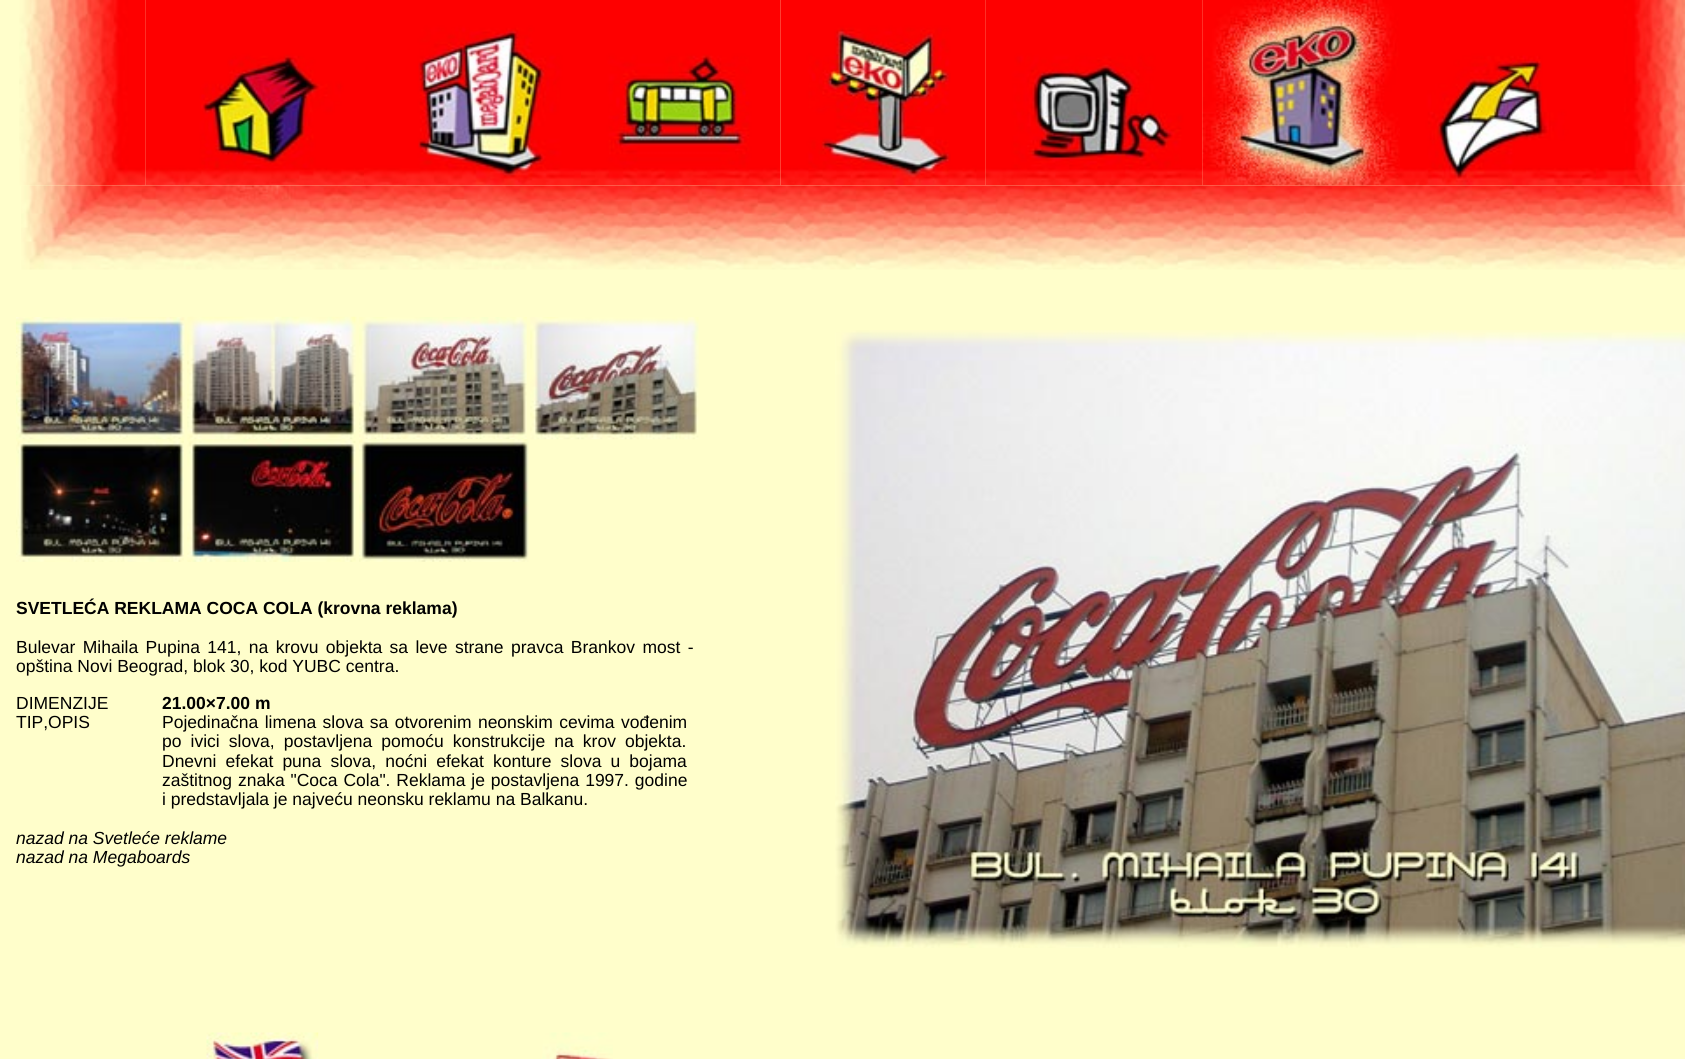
#include <cairo.h>
#include <math.h>
#include <stddef.h>


static void ink(cairo_t *ctx, unsigned color) {
    cairo_set_source_rgb(ctx, (color >> 16) / 255.0, (color >> 8 & 255) / 255.0, (color & 255) / 255.0);
}

static void write_spaced(cairo_t *ctx, double x, double y, const char *s, double letter, double word) {
    cairo_move_to(ctx, x, y);
    while (*s) {
        char ch[5] = {0};
        int n = 0;
        do ch[n++] = *s++; while ((*s & 0xC0) == 0x80);
        cairo_show_text(ctx, ch);
        cairo_rel_move_to(ctx, letter + word * (*ch == ' '), 0);
    }
}

static void paste(cairo_t *ctx, const char *path, double x, double y, double w, double h) {
    cairo_surface_t *image = cairo_image_surface_create_from_png(path);
    cairo_save(ctx);
    cairo_set_source_surface(ctx, image, x, y);
    cairo_rectangle(ctx, x, y, w, h);
    cairo_fill(ctx);
    cairo_restore(ctx);
    cairo_surface_destroy(image);
}

int main(void) {
    cairo_surface_t *surface = cairo_image_surface_create(CAIRO_FORMAT_RGB24, 1685, 1059);
    cairo_t *ctx = cairo_create(surface);
    cairo_font_options_t *options = cairo_font_options_create();
    cairo_font_options_set_hint_metrics(options, CAIRO_HINT_METRICS_OFF);
    cairo_font_options_set_hint_style(options, CAIRO_HINT_STYLE_NONE);
    cairo_set_font_options(ctx, options);
    cairo_set_miter_limit(ctx, 4);
    ink(ctx, 0xFFFECB);
    cairo_paint(ctx);
    paste(ctx, "media/1.png", 19, 0, 127, 186);
    paste(ctx, "media/2.png", 145, 0, 219, 186);
    paste(ctx, "media/3.png", 364, 0, 217, 186);
    paste(ctx, "media/4.png", 581, 0, 200, 186);
    paste(ctx, "media/5.png", 780, 0, 206, 186);
    paste(ctx, "media/6.png", 985, 0, 218, 186);
    paste(ctx, "media/7.png", 1202, 0, 198, 186);
    paste(ctx, "media/8.png", 1400, 0, 196, 186);
    paste(ctx, "media/9.png", 1596, 0, 89, 186);
    paste(ctx, "media/10.png", 21, 185, 1664, 85);
    paste(ctx, "media/11.png", 16, 317, 169, 122);
    paste(ctx, "media/12.png", 187, 316, 170, 123);
    paste(ctx, "media/13.png", 359, 317, 168, 123);
    paste(ctx, "media/14.png", 530, 317, 169, 123);
    paste(ctx, "media/15.png", 16, 439, 168, 123);
    paste(ctx, "media/16.png", 187, 439, 169, 123);
    paste(ctx, "media/17.png", 359, 439, 170, 123);
    cairo_select_font_face(ctx, "Liberation Sans", CAIRO_FONT_SLANT_NORMAL, CAIRO_FONT_WEIGHT_BOLD);
    cairo_set_font_size(ctx, 17.5);
    ink(ctx, 0x000000);
    cairo_move_to(ctx, 16, 614);
    cairo_show_text(ctx, "SVETLEĆA REKLAMA COCA COLA (krovna reklama)");
    cairo_select_font_face(ctx, "Liberation Sans", CAIRO_FONT_SLANT_NORMAL, CAIRO_FONT_WEIGHT_NORMAL);
    write_spaced(ctx, 16, 653, "Bulevar Mihaila Pupina 141, na krovu objekta sa leve strane pravca Brankov most -", 0, 2.5);
    cairo_move_to(ctx, 16, 672);
    cairo_show_text(ctx, "opština Novi Beograd, blok 30, kod YUBC centra.");
    cairo_move_to(ctx, 16, 709);
    cairo_show_text(ctx, "DIMENZIJE");
    cairo_select_font_face(ctx, "Liberation Sans", CAIRO_FONT_SLANT_NORMAL, CAIRO_FONT_WEIGHT_BOLD);
    cairo_move_to(ctx, 162, 709);
    cairo_show_text(ctx, "21.00×7.00 m");
    cairo_select_font_face(ctx, "Liberation Sans", CAIRO_FONT_SLANT_NORMAL, CAIRO_FONT_WEIGHT_NORMAL);
    cairo_move_to(ctx, 16, 728);
    cairo_show_text(ctx, "TIP,OPIS");
    write_spaced(ctx, 162, 728, "Pojedinačna limena slova sa otvorenim neonskim cevima vođenim", 0, 1.5);
    write_spaced(ctx, 162, 747, "po ivici slova, postavljena pomoću konstrukcije na krov objekta.", 0, 4.25);
    write_spaced(ctx, 162, 767, "Dnevni efekat puna slova, noćni efekat konture slova u bojama", 0, 4.25);
    write_spaced(ctx, 162, 786, "zaštitnog znaka \"Coca Cola\". Reklama je postavljena 1997. godine", 0, 1);
    cairo_move_to(ctx, 162, 805);
    cairo_show_text(ctx, "i predstavljala je najveću neonsku reklamu na Balkanu.");
    cairo_select_font_face(ctx, "Liberation Sans", CAIRO_FONT_SLANT_ITALIC, CAIRO_FONT_WEIGHT_NORMAL);
    cairo_move_to(ctx, 16, 844);
    cairo_show_text(ctx, "nazad na Svetleće reklame");
    cairo_move_to(ctx, 16, 863);
    cairo_show_text(ctx, "nazad na Megaboards");
    paste(ctx, "media/18.png", 835, 330, 850, 618);
    paste(ctx, "media/19.png", 206, 1032, 113, 27);
    paste(ctx, "media/20.png", 318, 1032, 295, 27);
    cairo_surface_write_to_png(surface, "image.png");
    cairo_font_options_destroy(options);
    cairo_destroy(ctx);
    cairo_surface_destroy(surface);
    return 0;
}
